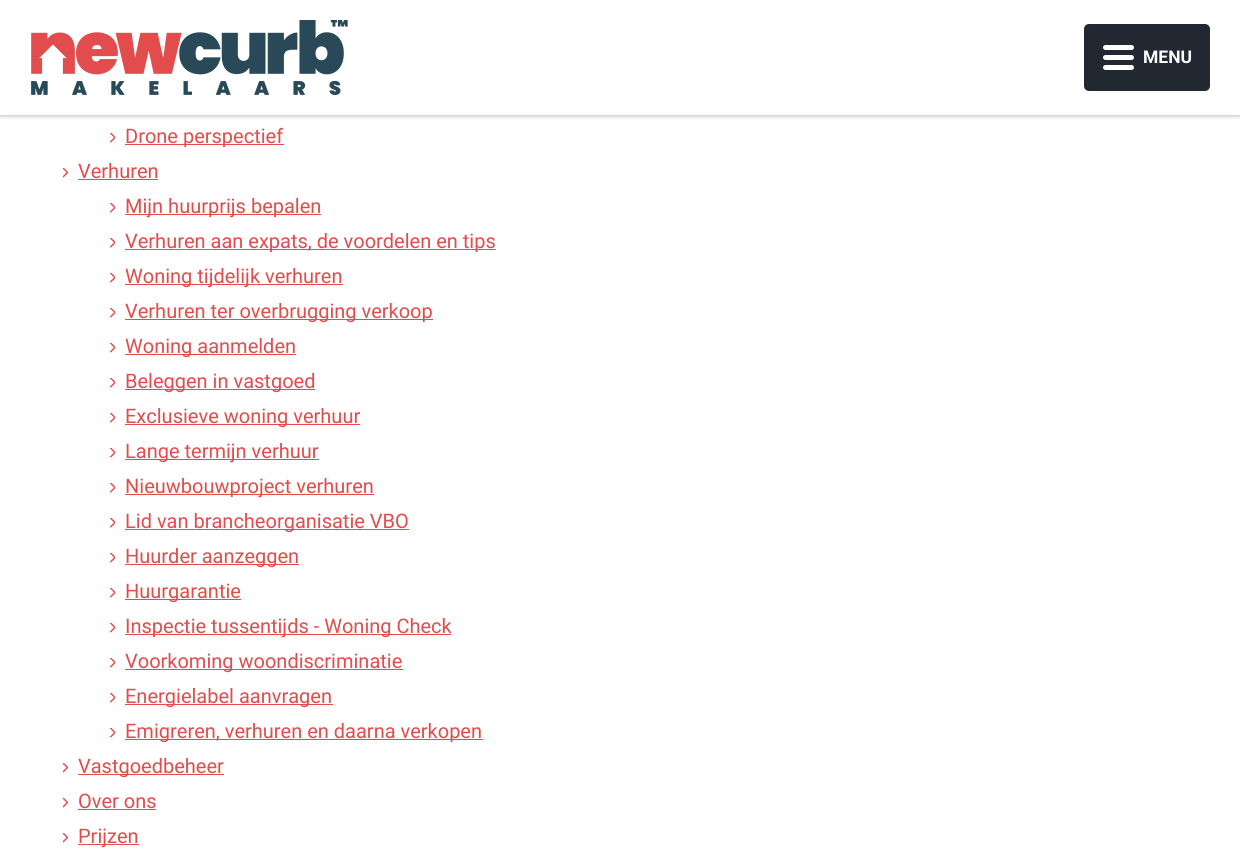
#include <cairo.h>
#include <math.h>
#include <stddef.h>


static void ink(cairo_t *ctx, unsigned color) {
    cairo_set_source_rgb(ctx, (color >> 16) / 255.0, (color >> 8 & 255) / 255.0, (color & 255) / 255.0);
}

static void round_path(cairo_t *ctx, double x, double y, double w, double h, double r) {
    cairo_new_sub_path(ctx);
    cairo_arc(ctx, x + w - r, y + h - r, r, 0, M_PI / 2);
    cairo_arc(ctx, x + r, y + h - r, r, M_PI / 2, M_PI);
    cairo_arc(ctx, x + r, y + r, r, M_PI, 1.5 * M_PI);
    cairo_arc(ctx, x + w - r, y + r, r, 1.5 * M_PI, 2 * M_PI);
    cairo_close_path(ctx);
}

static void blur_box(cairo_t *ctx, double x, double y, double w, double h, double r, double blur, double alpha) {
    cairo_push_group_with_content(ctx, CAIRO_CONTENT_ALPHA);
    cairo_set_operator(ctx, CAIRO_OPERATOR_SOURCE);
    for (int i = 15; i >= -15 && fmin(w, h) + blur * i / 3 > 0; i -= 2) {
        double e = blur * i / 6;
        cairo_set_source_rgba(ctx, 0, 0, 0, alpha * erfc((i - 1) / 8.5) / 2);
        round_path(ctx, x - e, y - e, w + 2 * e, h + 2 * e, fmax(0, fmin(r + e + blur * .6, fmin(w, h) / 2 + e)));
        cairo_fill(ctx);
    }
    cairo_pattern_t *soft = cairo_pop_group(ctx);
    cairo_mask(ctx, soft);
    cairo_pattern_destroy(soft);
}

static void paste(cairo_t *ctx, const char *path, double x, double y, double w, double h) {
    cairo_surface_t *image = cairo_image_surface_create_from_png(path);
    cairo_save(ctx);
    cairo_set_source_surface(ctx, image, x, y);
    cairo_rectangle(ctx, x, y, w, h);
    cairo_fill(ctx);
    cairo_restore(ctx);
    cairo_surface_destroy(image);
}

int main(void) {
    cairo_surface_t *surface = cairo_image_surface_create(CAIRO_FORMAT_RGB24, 1240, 864);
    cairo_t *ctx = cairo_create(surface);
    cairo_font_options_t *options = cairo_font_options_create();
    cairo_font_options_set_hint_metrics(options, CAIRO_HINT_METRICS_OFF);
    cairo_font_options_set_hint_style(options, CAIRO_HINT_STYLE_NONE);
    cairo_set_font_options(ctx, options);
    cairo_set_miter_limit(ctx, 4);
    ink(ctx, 0xFFFFFF);
    cairo_paint(ctx);
    ink(ctx, 0x000000);
    blur_box(ctx, 0, 0, 1240, 115, 0, 2.5, 0.4);
    ink(ctx, 0xFFFFFF);
    cairo_rectangle(ctx, 0, 0, 1240, 115);
    cairo_fill(ctx);
    paste(ctx, "media/1.png", 31, 20, 317, 75);
    ink(ctx, 0x222831);
    round_path(ctx, 1084, 24, 126, 67, 5);
    cairo_fill(ctx);
    ink(ctx, 0xFFFFFF);
    round_path(ctx, 1103, 55, 31, 5, 2.5);
    cairo_fill(ctx);
    round_path(ctx, 1103, 45, 31, 5, 2.5);
    cairo_fill(ctx);
    round_path(ctx, 1103, 65, 31, 5, 2.5);
    cairo_fill(ctx);
    cairo_select_font_face(ctx, "Roboto", CAIRO_FONT_SLANT_NORMAL, CAIRO_FONT_WEIGHT_BOLD);
    cairo_set_font_size(ctx, 17.5);
    cairo_move_to(ctx, 1143, 63);
    cairo_show_text(ctx, "MENU");
    paste(ctx, "media/2.png", 110, 133, 5, 10);
    ink(ctx, 0xE24C4C);
    cairo_rectangle(ctx, 125, 144, 159, 1);
    cairo_fill(ctx);
    cairo_select_font_face(ctx, "Roboto", CAIRO_FONT_SLANT_NORMAL, CAIRO_FONT_WEIGHT_NORMAL);
    cairo_set_font_size(ctx, 20);
    cairo_move_to(ctx, 125, 143);
    cairo_show_text(ctx, "Drone perspectief");
    paste(ctx, "media/3.png", 63, 168, 5, 10);
    cairo_move_to(ctx, 78, 178);
    cairo_show_text(ctx, "Verhuren");
    cairo_rectangle(ctx, 78, 179, 80, 1);
    cairo_fill(ctx);
    paste(ctx, "media/2.png", 110, 203, 5, 10);
    cairo_rectangle(ctx, 125, 214, 196, 1);
    cairo_fill(ctx);
    cairo_move_to(ctx, 125, 213);
    cairo_show_text(ctx, "Mijn huurprijs bepalen");
    paste(ctx, "media/2.png", 110, 238, 5, 10);
    cairo_rectangle(ctx, 125, 249, 371, 1);
    cairo_fill(ctx);
    cairo_move_to(ctx, 125, 248);
    cairo_show_text(ctx, "Verhuren aan expats, de voordelen en tips");
    paste(ctx, "media/2.png", 110, 273, 5, 10);
    cairo_rectangle(ctx, 125, 284, 218, 1);
    cairo_fill(ctx);
    cairo_move_to(ctx, 125, 283);
    cairo_show_text(ctx, "Woning tijdelijk verhuren");
    paste(ctx, "media/2.png", 110, 308, 5, 10);
    cairo_rectangle(ctx, 125, 319, 308, 1);
    cairo_fill(ctx);
    cairo_move_to(ctx, 125, 318);
    cairo_show_text(ctx, "Verhuren ter overbrugging verkoop");
    paste(ctx, "media/2.png", 110, 343, 5, 10);
    cairo_rectangle(ctx, 125, 354, 171, 1);
    cairo_fill(ctx);
    cairo_move_to(ctx, 125, 353);
    cairo_show_text(ctx, "Woning aanmelden");
    paste(ctx, "media/2.png", 110, 378, 5, 10);
    cairo_rectangle(ctx, 125, 389, 190, 1);
    cairo_fill(ctx);
    cairo_move_to(ctx, 125, 388);
    cairo_show_text(ctx, "Beleggen in vastgoed");
    paste(ctx, "media/2.png", 110, 413, 5, 10);
    cairo_rectangle(ctx, 125, 424, 235, 1);
    cairo_fill(ctx);
    cairo_move_to(ctx, 125, 423);
    cairo_show_text(ctx, "Exclusieve woning verhuur");
    paste(ctx, "media/2.png", 110, 448, 5, 10);
    cairo_rectangle(ctx, 125, 459, 194, 1);
    cairo_fill(ctx);
    cairo_move_to(ctx, 125, 458);
    cairo_show_text(ctx, "Lange termijn verhuur");
    paste(ctx, "media/2.png", 110, 483, 5, 10);
    cairo_rectangle(ctx, 125, 494, 249, 1);
    cairo_fill(ctx);
    cairo_move_to(ctx, 125, 493);
    cairo_show_text(ctx, "Nieuwbouwproject verhuren");
    paste(ctx, "media/2.png", 110, 518, 5, 10);
    cairo_rectangle(ctx, 125, 529, 284, 1);
    cairo_fill(ctx);
    cairo_move_to(ctx, 125, 528);
    cairo_show_text(ctx, "Lid van brancheorganisatie VBO");
    paste(ctx, "media/2.png", 110, 553, 5, 10);
    cairo_rectangle(ctx, 125, 564, 174, 1);
    cairo_fill(ctx);
    cairo_move_to(ctx, 125, 563);
    cairo_show_text(ctx, "Huurder aanzeggen");
    paste(ctx, "media/2.png", 110, 588, 5, 10);
    cairo_rectangle(ctx, 125, 599, 116, 1);
    cairo_fill(ctx);
    cairo_move_to(ctx, 125, 598);
    cairo_show_text(ctx, "Huurgarantie");
    paste(ctx, "media/2.png", 110, 623, 5, 10);
    cairo_rectangle(ctx, 125, 634, 326, 1);
    cairo_fill(ctx);
    cairo_move_to(ctx, 125, 633);
    cairo_show_text(ctx, "Inspectie tussentijds - Woning Check");
    paste(ctx, "media/2.png", 110, 658, 5, 10);
    cairo_rectangle(ctx, 125, 669, 278, 1);
    cairo_fill(ctx);
    cairo_move_to(ctx, 125, 668);
    cairo_show_text(ctx, "Voorkoming woondiscriminatie");
    paste(ctx, "media/2.png", 110, 693, 5, 10);
    cairo_rectangle(ctx, 125, 704, 208, 1);
    cairo_fill(ctx);
    cairo_move_to(ctx, 125, 703);
    cairo_show_text(ctx, "Energielabel aanvragen");
    paste(ctx, "media/2.png", 110, 728, 5, 10);
    cairo_rectangle(ctx, 125, 739, 358, 1);
    cairo_fill(ctx);
    cairo_move_to(ctx, 125, 738);
    cairo_show_text(ctx, "Emigreren, verhuren en daarna verkopen");
    paste(ctx, "media/3.png", 63, 763, 5, 10);
    cairo_rectangle(ctx, 78, 774, 146, 1);
    cairo_fill(ctx);
    cairo_move_to(ctx, 78, 773);
    cairo_show_text(ctx, "Vastgoedbeheer");
    paste(ctx, "media/3.png", 63, 798, 5, 10);
    cairo_move_to(ctx, 78, 808);
    cairo_show_text(ctx, "Over ons");
    cairo_rectangle(ctx, 78, 809, 78, 1);
    cairo_fill(ctx);
    paste(ctx, "media/3.png", 63, 833, 5, 10);
    cairo_rectangle(ctx, 78, 844, 61, 1);
    cairo_fill(ctx);
    cairo_move_to(ctx, 78, 843);
    cairo_show_text(ctx, "Prijzen");
    cairo_surface_write_to_png(surface, "image.png");
    cairo_font_options_destroy(options);
    cairo_destroy(ctx);
    cairo_surface_destroy(surface);
    return 0;
}
